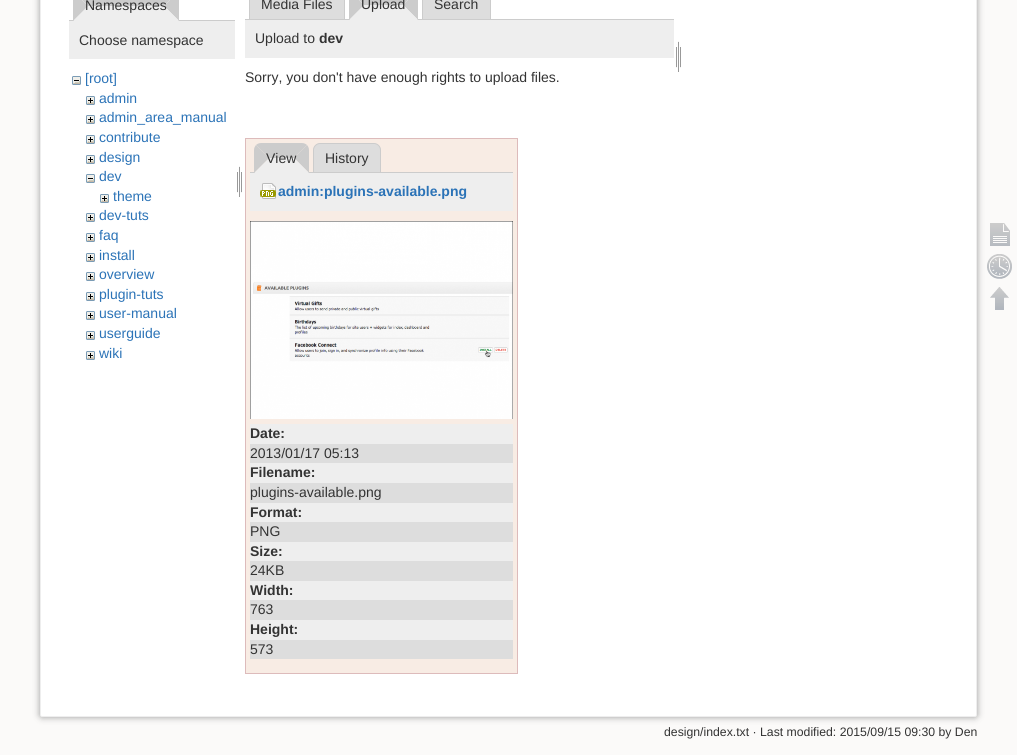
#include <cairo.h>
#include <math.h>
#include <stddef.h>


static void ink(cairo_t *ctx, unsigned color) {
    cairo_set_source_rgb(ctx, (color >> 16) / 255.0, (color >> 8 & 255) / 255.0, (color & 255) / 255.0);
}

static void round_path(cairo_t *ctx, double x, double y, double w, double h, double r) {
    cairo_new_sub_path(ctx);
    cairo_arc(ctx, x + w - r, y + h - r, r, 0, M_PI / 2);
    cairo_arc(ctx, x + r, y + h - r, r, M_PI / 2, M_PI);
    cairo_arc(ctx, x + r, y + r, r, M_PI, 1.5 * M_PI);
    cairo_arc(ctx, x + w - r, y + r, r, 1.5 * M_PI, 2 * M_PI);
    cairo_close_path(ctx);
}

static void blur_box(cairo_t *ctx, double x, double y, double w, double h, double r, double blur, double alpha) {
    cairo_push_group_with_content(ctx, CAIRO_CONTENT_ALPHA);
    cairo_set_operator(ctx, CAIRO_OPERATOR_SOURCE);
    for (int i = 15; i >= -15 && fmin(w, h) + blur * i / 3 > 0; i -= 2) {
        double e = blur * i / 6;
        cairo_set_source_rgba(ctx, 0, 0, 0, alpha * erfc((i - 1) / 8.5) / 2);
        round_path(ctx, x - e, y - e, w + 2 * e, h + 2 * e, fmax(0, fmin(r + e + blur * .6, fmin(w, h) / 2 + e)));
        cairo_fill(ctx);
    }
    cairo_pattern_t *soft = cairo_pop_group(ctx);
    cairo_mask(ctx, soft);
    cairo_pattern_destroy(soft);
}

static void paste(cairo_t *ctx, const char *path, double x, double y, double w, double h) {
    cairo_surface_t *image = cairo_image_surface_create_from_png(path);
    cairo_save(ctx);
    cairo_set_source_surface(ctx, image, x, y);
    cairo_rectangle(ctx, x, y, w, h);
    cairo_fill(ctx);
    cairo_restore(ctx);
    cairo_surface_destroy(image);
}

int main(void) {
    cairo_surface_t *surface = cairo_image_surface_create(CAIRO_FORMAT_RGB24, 1017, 755);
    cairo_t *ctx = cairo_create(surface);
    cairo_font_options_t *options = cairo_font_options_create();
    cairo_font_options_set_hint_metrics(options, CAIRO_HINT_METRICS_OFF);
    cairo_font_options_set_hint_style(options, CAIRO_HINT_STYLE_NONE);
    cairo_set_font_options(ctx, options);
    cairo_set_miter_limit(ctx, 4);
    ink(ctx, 0xFBFAF9);
    cairo_paint(ctx);
    ink(ctx, 0x999999);
    blur_box(ctx, 40, -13, 937, 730, 2, 3.5, 1);
    ink(ctx, 0xFFFFFF);
    round_path(ctx, 40.5, -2.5, 936, 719, 1.5);
    cairo_fill_preserve(ctx);
    ink(ctx, 0xEEEEEE);
    cairo_set_line_width(ctx, 1);
    cairo_stroke(ctx);
    ink(ctx, 0xCCCCCC);
    cairo_new_path(ctx);
    cairo_move_to(ctx, 80, -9);
    cairo_line_to(ctx, 173, -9);
    cairo_line_to(ctx, 177, -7);
    cairo_line_to(ctx, 164, 6);
    cairo_line_to(ctx, 88, 6);
    cairo_line_to(ctx, 75, -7);
    cairo_curve_to(ctx, 76, -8, 78, -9, 80, -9);
    cairo_close_path(ctx);
    cairo_fill(ctx);
    cairo_rectangle(ctx, 69, 20, 166, 1);
    cairo_fill(ctx);
    cairo_new_path(ctx);
    cairo_move_to(ctx, 177, -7);
    cairo_line_to(ctx, 164, 6);
    cairo_line_to(ctx, 179, 21);
    cairo_line_to(ctx, 179, -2);
    cairo_curve_to(ctx, 179, -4, 178, -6, 177, -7);
    cairo_close_path(ctx);
    cairo_fill(ctx);
    ink(ctx, 0xEEEEEE);
    cairo_new_path(ctx);
    cairo_move_to(ctx, 179, 21);
    cairo_line_to(ctx, 164, 6);
    cairo_line_to(ctx, 88, 6);
    cairo_line_to(ctx, 73, 21);
    cairo_close_path(ctx);
    cairo_fill(ctx);
    ink(ctx, 0xCCCCCC);
    cairo_new_path(ctx);
    cairo_move_to(ctx, 73, 21);
    cairo_line_to(ctx, 73, -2);
    cairo_curve_to(ctx, 73, -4, 74, -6, 75, -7);
    cairo_line_to(ctx, 88, 6);
    cairo_close_path(ctx);
    cairo_fill(ctx);
    cairo_select_font_face(ctx, "Liberation Sans", CAIRO_FONT_SLANT_NORMAL, CAIRO_FONT_WEIGHT_NORMAL);
    cairo_set_font_size(ctx, 14);
    ink(ctx, 0x333333);
    cairo_move_to(ctx, 85, 10);
    cairo_show_text(ctx, "Namespaces");
    ink(ctx, 0xEEEEEE);
    cairo_rectangle(ctx, 69, 21, 166, 38);
    cairo_fill(ctx);
    ink(ctx, 0x333333);
    cairo_move_to(ctx, 79, 45);
    cairo_show_text(ctx, "Choose namespace");
    paste(ctx, "media/1.png", 72, 76, 9, 9);
    ink(ctx, 0x2B73B7);
    cairo_move_to(ctx, 85, 83);
    cairo_show_text(ctx, "[root]");
    paste(ctx, "media/2.png", 86, 96, 9, 9);
    cairo_move_to(ctx, 99, 103);
    cairo_show_text(ctx, "admin");
    paste(ctx, "media/2.png", 86, 115, 9, 9);
    cairo_move_to(ctx, 99, 122);
    cairo_show_text(ctx, "admin_area_manual");
    paste(ctx, "media/2.png", 86, 135, 9, 9);
    cairo_move_to(ctx, 99, 142);
    cairo_show_text(ctx, "contribute");
    paste(ctx, "media/2.png", 86, 155, 9, 9);
    cairo_move_to(ctx, 99, 162);
    cairo_show_text(ctx, "design");
    paste(ctx, "media/1.png", 86, 174, 9, 9);
    cairo_move_to(ctx, 99, 181);
    cairo_show_text(ctx, "dev");
    paste(ctx, "media/2.png", 100, 194, 9, 9);
    cairo_move_to(ctx, 113, 201);
    cairo_show_text(ctx, "theme");
    paste(ctx, "media/2.png", 86, 213, 9, 9);
    cairo_move_to(ctx, 99, 220);
    cairo_show_text(ctx, "dev-tuts");
    paste(ctx, "media/2.png", 86, 233, 9, 9);
    cairo_move_to(ctx, 99, 240);
    cairo_show_text(ctx, "faq");
    paste(ctx, "media/2.png", 86, 253, 9, 9);
    cairo_move_to(ctx, 99, 260);
    cairo_show_text(ctx, "install");
    paste(ctx, "media/2.png", 86, 272, 9, 9);
    cairo_move_to(ctx, 99, 279);
    cairo_show_text(ctx, "overview");
    paste(ctx, "media/2.png", 86, 292, 9, 9);
    cairo_move_to(ctx, 99, 299);
    cairo_show_text(ctx, "plugin-tuts");
    paste(ctx, "media/2.png", 86, 311, 9, 9);
    cairo_move_to(ctx, 99, 318);
    cairo_show_text(ctx, "user-manual");
    paste(ctx, "media/2.png", 86, 331, 9, 9);
    cairo_move_to(ctx, 99, 338);
    cairo_show_text(ctx, "userguide");
    paste(ctx, "media/2.png", 86, 351, 9, 9);
    cairo_move_to(ctx, 99, 358);
    cairo_show_text(ctx, "wiki");
    paste(ctx, "media/3.png", 237, 166, 5, 31);
    ink(ctx, 0xDDDDDD);
    cairo_rectangle(ctx, 249.5, -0.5, 95, 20);
    cairo_fill_preserve(ctx);
    ink(ctx, 0xCCCCCC);
    cairo_stroke(ctx);
    ink(ctx, 0x333333);
    cairo_move_to(ctx, 261, 9);
    cairo_show_text(ctx, "Media Files");
    ink(ctx, 0xCCCCCC);
    cairo_new_path(ctx);
    cairo_move_to(ctx, 356, -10);
    cairo_line_to(ctx, 411, -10);
    cairo_curve_to(ctx, 413, -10, 415, -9, 416, -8);
    cairo_line_to(ctx, 403, 5);
    cairo_line_to(ctx, 364, 5);
    cairo_line_to(ctx, 351, -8);
    cairo_curve_to(ctx, 352, -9, 354, -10, 356, -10);
    cairo_close_path(ctx);
    cairo_fill(ctx);
    ink(ctx, 0xDDDDDD);
    cairo_rectangle(ctx, 422.5, -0.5, 68, 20);
    cairo_fill_preserve(ctx);
    ink(ctx, 0xCCCCCC);
    cairo_stroke(ctx);
    cairo_rectangle(ctx, 245, 19, 429, 1);
    cairo_fill(ctx);
    cairo_new_path(ctx);
    cairo_move_to(ctx, 416, -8);
    cairo_line_to(ctx, 403, 5);
    cairo_line_to(ctx, 418, 20);
    cairo_line_to(ctx, 418, -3);
    cairo_curve_to(ctx, 418, -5, 417, -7, 416, -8);
    cairo_close_path(ctx);
    cairo_fill(ctx);
    ink(ctx, 0xEEEEEE);
    cairo_new_path(ctx);
    cairo_move_to(ctx, 418, 20);
    cairo_line_to(ctx, 403, 5);
    cairo_line_to(ctx, 364, 5);
    cairo_line_to(ctx, 349, 20);
    cairo_close_path(ctx);
    cairo_fill(ctx);
    ink(ctx, 0xCCCCCC);
    cairo_new_path(ctx);
    cairo_move_to(ctx, 349, 20);
    cairo_line_to(ctx, 349, -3);
    cairo_curve_to(ctx, 349, -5, 350, -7, 351, -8);
    cairo_line_to(ctx, 364, 5);
    cairo_close_path(ctx);
    cairo_fill(ctx);
    ink(ctx, 0x333333);
    cairo_move_to(ctx, 361, 9);
    cairo_show_text(ctx, "Upload");
    cairo_move_to(ctx, 434, 9);
    cairo_show_text(ctx, "Search");
    ink(ctx, 0xEEEEEE);
    cairo_rectangle(ctx, 245, 20, 429, 38);
    cairo_fill(ctx);
    ink(ctx, 0x333333);
    cairo_move_to(ctx, 255, 43);
    cairo_show_text(ctx, "Upload to");
    cairo_select_font_face(ctx, "Liberation Sans", CAIRO_FONT_SLANT_NORMAL, CAIRO_FONT_WEIGHT_BOLD);
    cairo_move_to(ctx, 319, 43);
    cairo_show_text(ctx, "dev");
    paste(ctx, "media/3.png", 676, 41, 5, 31);
    cairo_select_font_face(ctx, "Liberation Sans", CAIRO_FONT_SLANT_NORMAL, CAIRO_FONT_WEIGHT_NORMAL);
    cairo_move_to(ctx, 245, 82);
    cairo_show_text(ctx, "Sorry, you don't have enough rights to upload files.");
    ink(ctx, 0xF8ECE4);
    cairo_rectangle(ctx, 245.5, 138.5, 272, 535);
    cairo_fill_preserve(ctx);
    ink(ctx, 0xDDBBBB);
    cairo_stroke(ctx);
    ink(ctx, 0xCCCCCC);
    cairo_new_path(ctx);
    cairo_move_to(ctx, 261, 143);
    cairo_line_to(ctx, 302, 143);
    cairo_curve_to(ctx, 304, 143, 306, 144, 307, 145);
    cairo_line_to(ctx, 294, 158);
    cairo_line_to(ctx, 269, 158);
    cairo_line_to(ctx, 256, 145);
    cairo_curve_to(ctx, 257, 144, 259, 143, 261, 143);
    cairo_close_path(ctx);
    cairo_fill(ctx);
    ink(ctx, 0xDDDDDD);
    cairo_new_path(ctx);
    cairo_move_to(ctx, 320, 143.5);
    cairo_line_to(ctx, 374, 143.5);
    cairo_curve_to(ctx, 377.5, 143.5, 380.5, 146.5, 380.5, 150);
    cairo_line_to(ctx, 380.5, 172.5);
    cairo_line_to(ctx, 313.5, 172.5);
    cairo_line_to(ctx, 313.5, 150);
    cairo_curve_to(ctx, 313.5, 146.5, 316.5, 143.5, 320, 143.5);
    cairo_close_path(ctx);
    cairo_fill_preserve(ctx);
    ink(ctx, 0xCCCCCC);
    cairo_stroke(ctx);
    cairo_rectangle(ctx, 250, 172, 263, 1);
    cairo_fill(ctx);
    cairo_new_path(ctx);
    cairo_move_to(ctx, 307, 145);
    cairo_line_to(ctx, 294, 158);
    cairo_line_to(ctx, 309, 173);
    cairo_line_to(ctx, 309, 150);
    cairo_curve_to(ctx, 309, 148, 308, 146, 307, 145);
    cairo_close_path(ctx);
    cairo_fill(ctx);
    ink(ctx, 0xEEEEEE);
    cairo_new_path(ctx);
    cairo_move_to(ctx, 309, 173);
    cairo_line_to(ctx, 294, 158);
    cairo_line_to(ctx, 269, 158);
    cairo_line_to(ctx, 254, 173);
    cairo_close_path(ctx);
    cairo_fill(ctx);
    ink(ctx, 0xCCCCCC);
    cairo_new_path(ctx);
    cairo_move_to(ctx, 254, 173);
    cairo_line_to(ctx, 254, 150);
    cairo_curve_to(ctx, 254, 148, 255, 146, 256, 145);
    cairo_line_to(ctx, 269, 158);
    cairo_close_path(ctx);
    cairo_fill(ctx);
    ink(ctx, 0x333333);
    cairo_move_to(ctx, 266, 163);
    cairo_show_text(ctx, "View");
    cairo_move_to(ctx, 325, 163);
    cairo_show_text(ctx, "History");
    ink(ctx, 0xEEEEEE);
    cairo_rectangle(ctx, 250, 173, 263, 38);
    cairo_fill(ctx);
    paste(ctx, "media/4.png", 260, 183, 16, 16);
    cairo_select_font_face(ctx, "Liberation Sans", CAIRO_FONT_SLANT_NORMAL, CAIRO_FONT_WEIGHT_BOLD);
    ink(ctx, 0x2B73B7);
    cairo_move_to(ctx, 278, 196);
    cairo_show_text(ctx, "admin:plugins-available.png");
    paste(ctx, "media/5.png", 250, 221, 263, 198);
    ink(ctx, 0xEEEEEE);
    cairo_rectangle(ctx, 250, 424, 263, 20);
    cairo_fill(ctx);
    ink(ctx, 0x333333);
    cairo_move_to(ctx, 250, 438);
    cairo_show_text(ctx, "Date:");
    ink(ctx, 0xDDDDDD);
    cairo_rectangle(ctx, 250, 444, 263, 19);
    cairo_fill(ctx);
    cairo_select_font_face(ctx, "Liberation Sans", CAIRO_FONT_SLANT_NORMAL, CAIRO_FONT_WEIGHT_NORMAL);
    ink(ctx, 0x333333);
    cairo_move_to(ctx, 250, 458);
    cairo_show_text(ctx, "2013/01/17 05:13");
    ink(ctx, 0xEEEEEE);
    cairo_rectangle(ctx, 250, 463, 263, 20);
    cairo_fill(ctx);
    cairo_select_font_face(ctx, "Liberation Sans", CAIRO_FONT_SLANT_NORMAL, CAIRO_FONT_WEIGHT_BOLD);
    ink(ctx, 0x333333);
    cairo_move_to(ctx, 250, 477);
    cairo_show_text(ctx, "Filename:");
    ink(ctx, 0xDDDDDD);
    cairo_rectangle(ctx, 250, 483, 263, 20);
    cairo_fill(ctx);
    cairo_select_font_face(ctx, "Liberation Sans", CAIRO_FONT_SLANT_NORMAL, CAIRO_FONT_WEIGHT_NORMAL);
    ink(ctx, 0x333333);
    cairo_move_to(ctx, 250, 497);
    cairo_show_text(ctx, "plugins-available.png");
    ink(ctx, 0xEEEEEE);
    cairo_rectangle(ctx, 250, 503, 263, 19);
    cairo_fill(ctx);
    cairo_select_font_face(ctx, "Liberation Sans", CAIRO_FONT_SLANT_NORMAL, CAIRO_FONT_WEIGHT_BOLD);
    ink(ctx, 0x333333);
    cairo_move_to(ctx, 250, 517);
    cairo_show_text(ctx, "Format:");
    ink(ctx, 0xDDDDDD);
    cairo_rectangle(ctx, 250, 522, 263, 20);
    cairo_fill(ctx);
    cairo_select_font_face(ctx, "Liberation Sans", CAIRO_FONT_SLANT_NORMAL, CAIRO_FONT_WEIGHT_NORMAL);
    ink(ctx, 0x333333);
    cairo_move_to(ctx, 250, 536);
    cairo_show_text(ctx, "PNG");
    ink(ctx, 0xEEEEEE);
    cairo_rectangle(ctx, 250, 542, 263, 19);
    cairo_fill(ctx);
    cairo_select_font_face(ctx, "Liberation Sans", CAIRO_FONT_SLANT_NORMAL, CAIRO_FONT_WEIGHT_BOLD);
    ink(ctx, 0x333333);
    cairo_move_to(ctx, 250, 556);
    cairo_show_text(ctx, "Size:");
    ink(ctx, 0xDDDDDD);
    cairo_rectangle(ctx, 250, 561, 263, 20);
    cairo_fill(ctx);
    cairo_select_font_face(ctx, "Liberation Sans", CAIRO_FONT_SLANT_NORMAL, CAIRO_FONT_WEIGHT_NORMAL);
    ink(ctx, 0x333333);
    cairo_move_to(ctx, 250, 575);
    cairo_show_text(ctx, "24KB");
    ink(ctx, 0xEEEEEE);
    cairo_rectangle(ctx, 250, 581, 263, 19);
    cairo_fill(ctx);
    cairo_select_font_face(ctx, "Liberation Sans", CAIRO_FONT_SLANT_NORMAL, CAIRO_FONT_WEIGHT_BOLD);
    ink(ctx, 0x333333);
    cairo_move_to(ctx, 250, 595);
    cairo_show_text(ctx, "Width:");
    ink(ctx, 0xDDDDDD);
    cairo_rectangle(ctx, 250, 600, 263, 20);
    cairo_fill(ctx);
    cairo_select_font_face(ctx, "Liberation Sans", CAIRO_FONT_SLANT_NORMAL, CAIRO_FONT_WEIGHT_NORMAL);
    ink(ctx, 0x333333);
    cairo_move_to(ctx, 250, 614);
    cairo_show_text(ctx, "763");
    ink(ctx, 0xEEEEEE);
    cairo_rectangle(ctx, 250, 620, 263, 20);
    cairo_fill(ctx);
    cairo_select_font_face(ctx, "Liberation Sans", CAIRO_FONT_SLANT_NORMAL, CAIRO_FONT_WEIGHT_BOLD);
    ink(ctx, 0x333333);
    cairo_move_to(ctx, 250, 634);
    cairo_show_text(ctx, "Height:");
    ink(ctx, 0xDDDDDD);
    cairo_rectangle(ctx, 250, 640, 263, 19);
    cairo_fill(ctx);
    cairo_select_font_face(ctx, "Liberation Sans", CAIRO_FONT_SLANT_NORMAL, CAIRO_FONT_WEIGHT_NORMAL);
    ink(ctx, 0x333333);
    cairo_move_to(ctx, 250, 654);
    cairo_show_text(ctx, "573");
    cairo_set_font_size(ctx, 12.25);
    cairo_move_to(ctx, 664, 736);
    cairo_show_text(ctx, "design/index.txt · Last modified: 2015/09/15 09:30 by Den");
    paste(ctx, "media/6.png", 990, 223, 20, 23);
    paste(ctx, "media/7.png", 987, 254, 25, 25);
    paste(ctx, "media/8.png", 990, 287, 19, 23);
    cairo_surface_write_to_png(surface, "image.png");
    cairo_font_options_destroy(options);
    cairo_destroy(ctx);
    cairo_surface_destroy(surface);
    return 0;
}
